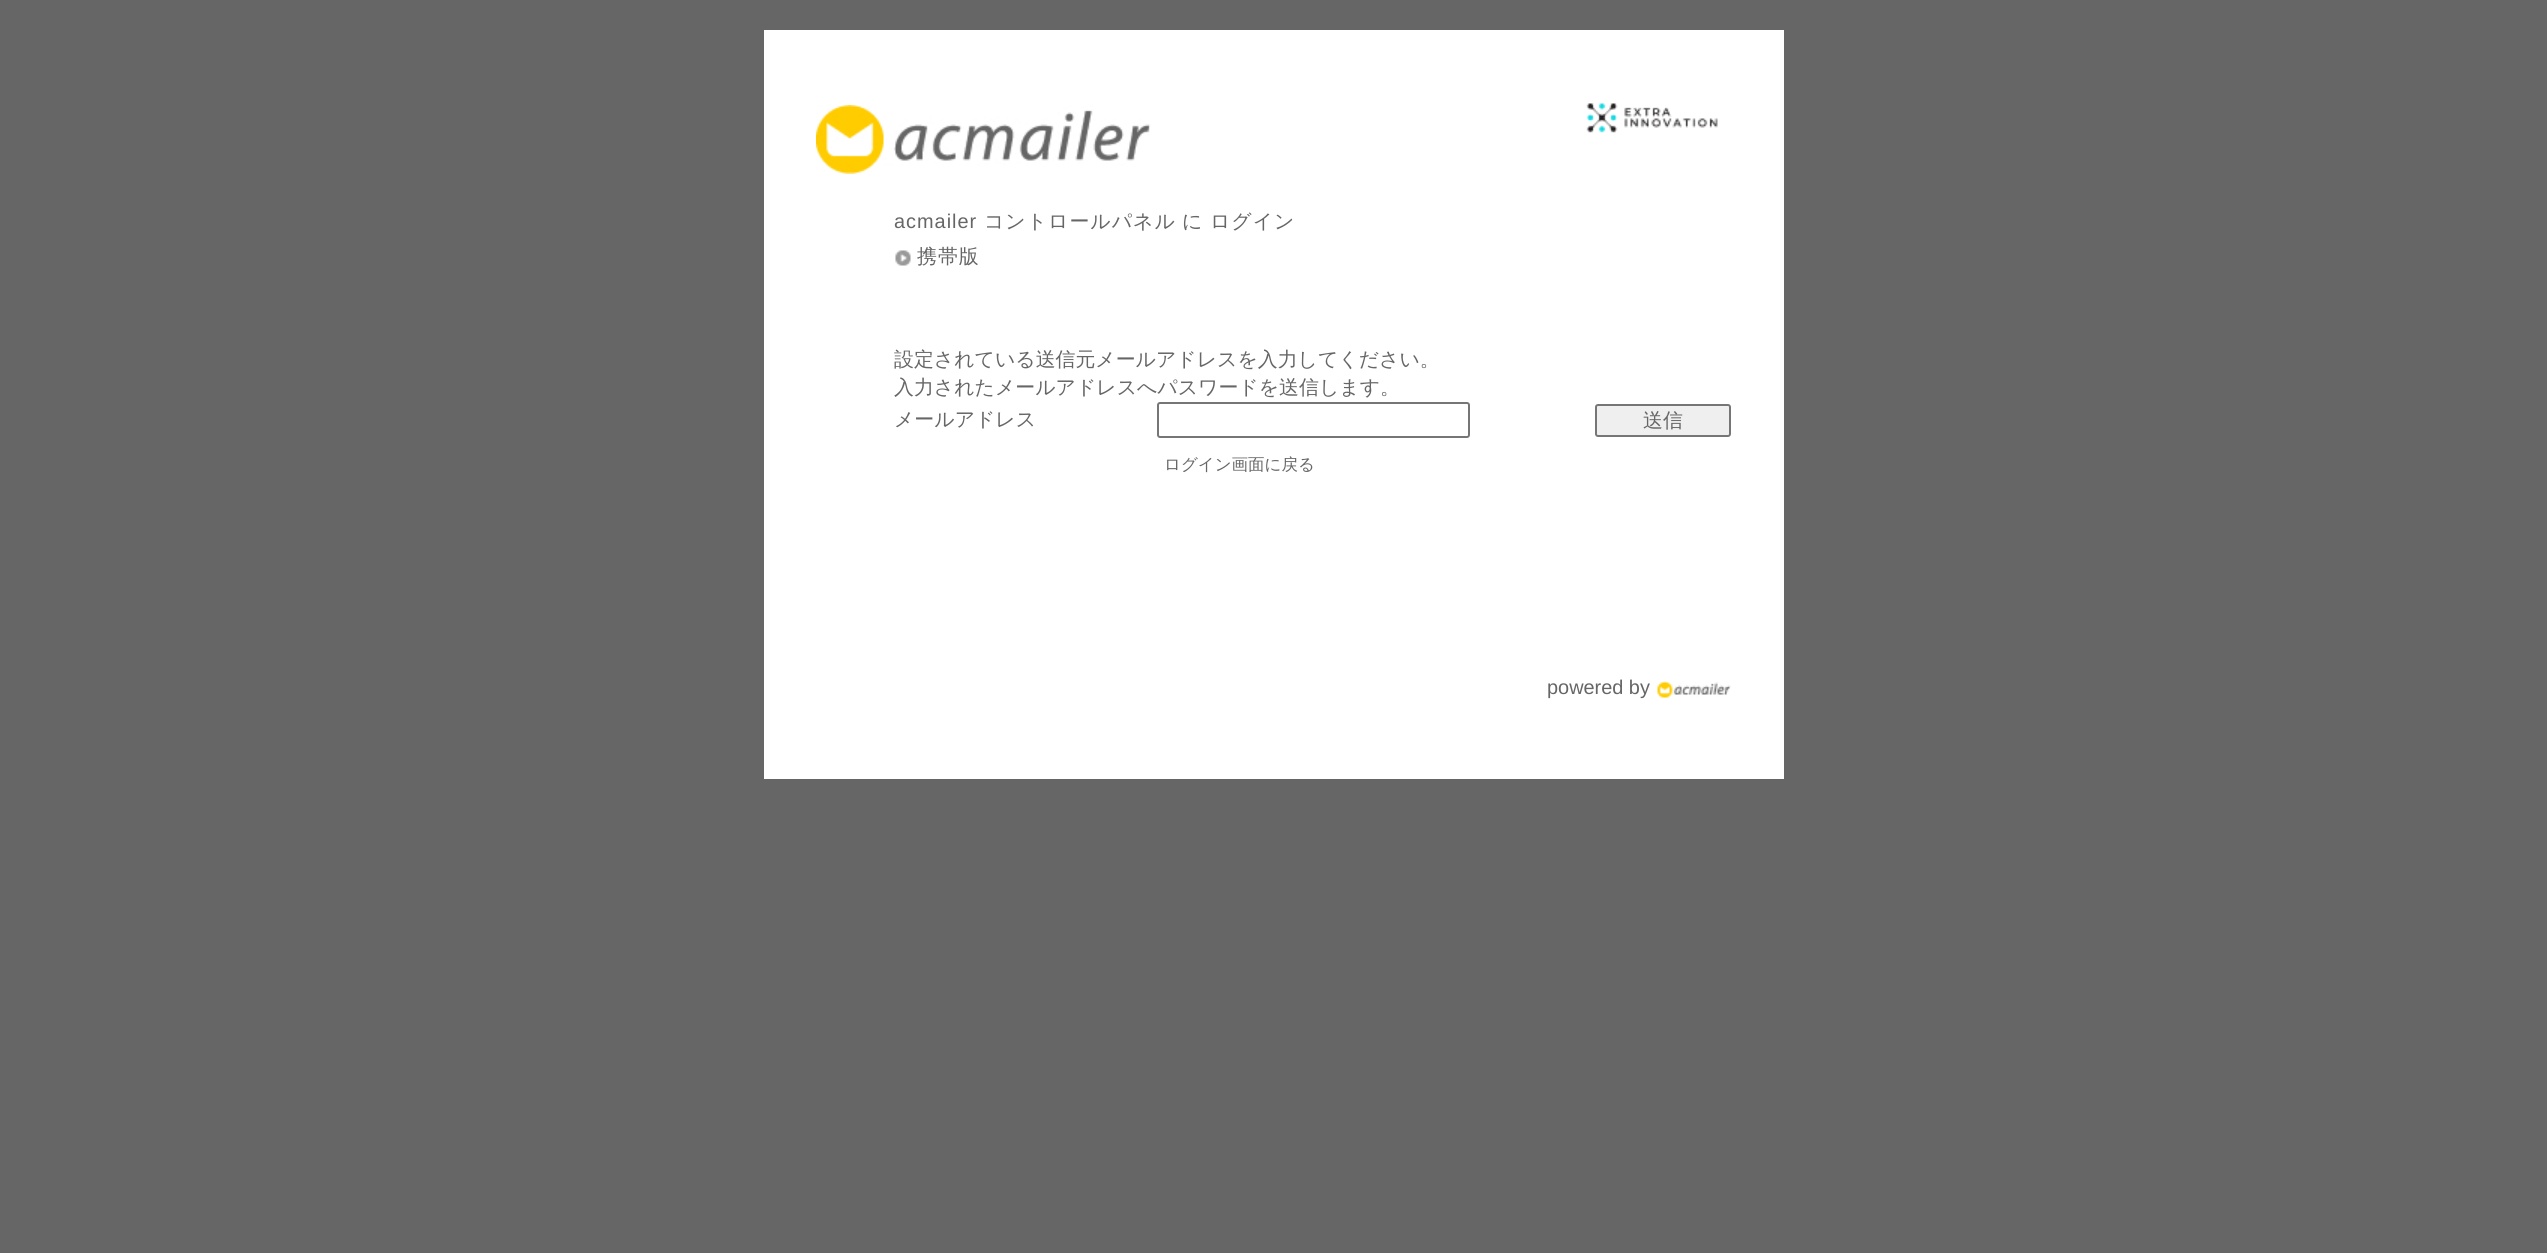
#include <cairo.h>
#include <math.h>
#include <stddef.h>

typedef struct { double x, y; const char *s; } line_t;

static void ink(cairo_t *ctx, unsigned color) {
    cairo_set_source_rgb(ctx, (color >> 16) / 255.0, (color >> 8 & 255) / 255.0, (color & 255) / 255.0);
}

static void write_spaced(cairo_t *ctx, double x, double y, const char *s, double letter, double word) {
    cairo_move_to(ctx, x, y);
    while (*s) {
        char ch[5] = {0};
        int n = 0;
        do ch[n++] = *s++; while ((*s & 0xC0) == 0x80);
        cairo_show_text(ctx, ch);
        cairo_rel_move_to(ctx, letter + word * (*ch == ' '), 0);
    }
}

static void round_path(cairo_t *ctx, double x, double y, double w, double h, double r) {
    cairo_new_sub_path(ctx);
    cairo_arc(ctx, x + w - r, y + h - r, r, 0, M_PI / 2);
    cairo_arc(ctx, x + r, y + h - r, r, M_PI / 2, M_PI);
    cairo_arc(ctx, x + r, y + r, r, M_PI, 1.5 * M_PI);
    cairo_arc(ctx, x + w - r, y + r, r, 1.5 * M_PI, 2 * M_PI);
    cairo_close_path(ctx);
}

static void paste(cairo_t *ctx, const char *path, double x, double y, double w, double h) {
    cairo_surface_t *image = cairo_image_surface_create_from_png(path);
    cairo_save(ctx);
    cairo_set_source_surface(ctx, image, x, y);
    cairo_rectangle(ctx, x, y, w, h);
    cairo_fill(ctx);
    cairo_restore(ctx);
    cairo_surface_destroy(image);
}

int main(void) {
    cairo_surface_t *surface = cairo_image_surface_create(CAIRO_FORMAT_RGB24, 2547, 1253);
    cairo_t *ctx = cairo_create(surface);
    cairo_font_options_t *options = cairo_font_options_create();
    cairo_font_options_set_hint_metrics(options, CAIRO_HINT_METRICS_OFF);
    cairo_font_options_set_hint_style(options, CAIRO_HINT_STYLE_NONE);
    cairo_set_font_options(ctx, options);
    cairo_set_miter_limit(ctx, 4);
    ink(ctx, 0x666666);
    cairo_paint(ctx);
    ink(ctx, 0xFFFFFF);
    cairo_rectangle(ctx, 764, 30, 1020, 749);
    cairo_fill(ctx);
    paste(ctx, "media/1.png", 816, 105, 335, 69);
    paste(ctx, "media/2.png", 1586, 103, 132, 30);
    cairo_select_font_face(ctx, "Liberation Sans", CAIRO_FONT_SLANT_NORMAL, CAIRO_FONT_WEIGHT_NORMAL);
    cairo_set_font_size(ctx, 19.9);
    ink(ctx, 0x666666);
    write_spaced(ctx, 894, 228, "acmailer", 1, 0);
    cairo_select_font_face(ctx, "WenQuanYi Zen Hei Medium", CAIRO_FONT_SLANT_NORMAL, CAIRO_FONT_WEIGHT_NORMAL);
    {
        static const line_t items[] = {
            {984, 228, "コントロールパネル"},
            {1182, 228, "に"},
            {1210, 228, "ログイン"},
        };
        for (size_t i = 0; i < sizeof items / sizeof *items; i++) {
            write_spaced(ctx, items[i].x, items[i].y, items[i].s, 1, 0);
        }
    }
    paste(ctx, "media/3.png", 895, 250, 16, 16);
    write_spaced(ctx, 917, 263, "携帯版", 1, 0);
    {
        static const line_t items[] = {
            {894, 366, "設定されている送信元メールアドレスを入力してください。"},
            {894, 394, "入力されたメールアドレスへパスワードを送信します。"},
            {894, 426, "メールアドレス"},
        };
        for (size_t i = 0; i < sizeof items / sizeof *items; i++) {
            cairo_move_to(ctx, items[i].x, items[i].y);
            cairo_show_text(ctx, items[i].s);
        }
    }
    round_path(ctx, 1158, 403, 311, 34, 2);
    ink(ctx, 0x767676);
    cairo_stroke(ctx);
    ink(ctx, 0xEFEFEF);
    round_path(ctx, 1596, 405, 134, 31, 2);
    cairo_fill_preserve(ctx);
    ink(ctx, 0x767676);
    cairo_stroke(ctx);
    ink(ctx, 0x666666);
    cairo_move_to(ctx, 1643, 427);
    cairo_show_text(ctx, "送信");
    cairo_set_font_size(ctx, 16.5);
    cairo_move_to(ctx, 1164, 470);
    cairo_show_text(ctx, "ログイン画面に戻る");
    cairo_select_font_face(ctx, "Liberation Sans", CAIRO_FONT_SLANT_NORMAL, CAIRO_FONT_WEIGHT_NORMAL);
    cairo_set_font_size(ctx, 19.9);
    cairo_move_to(ctx, 1547, 694);
    cairo_show_text(ctx, "powered by");
    paste(ctx, "media/4.png", 1657, 681, 74, 17);
    cairo_surface_write_to_png(surface, "image.png");
    cairo_font_options_destroy(options);
    cairo_destroy(ctx);
    cairo_surface_destroy(surface);
    return 0;
}
